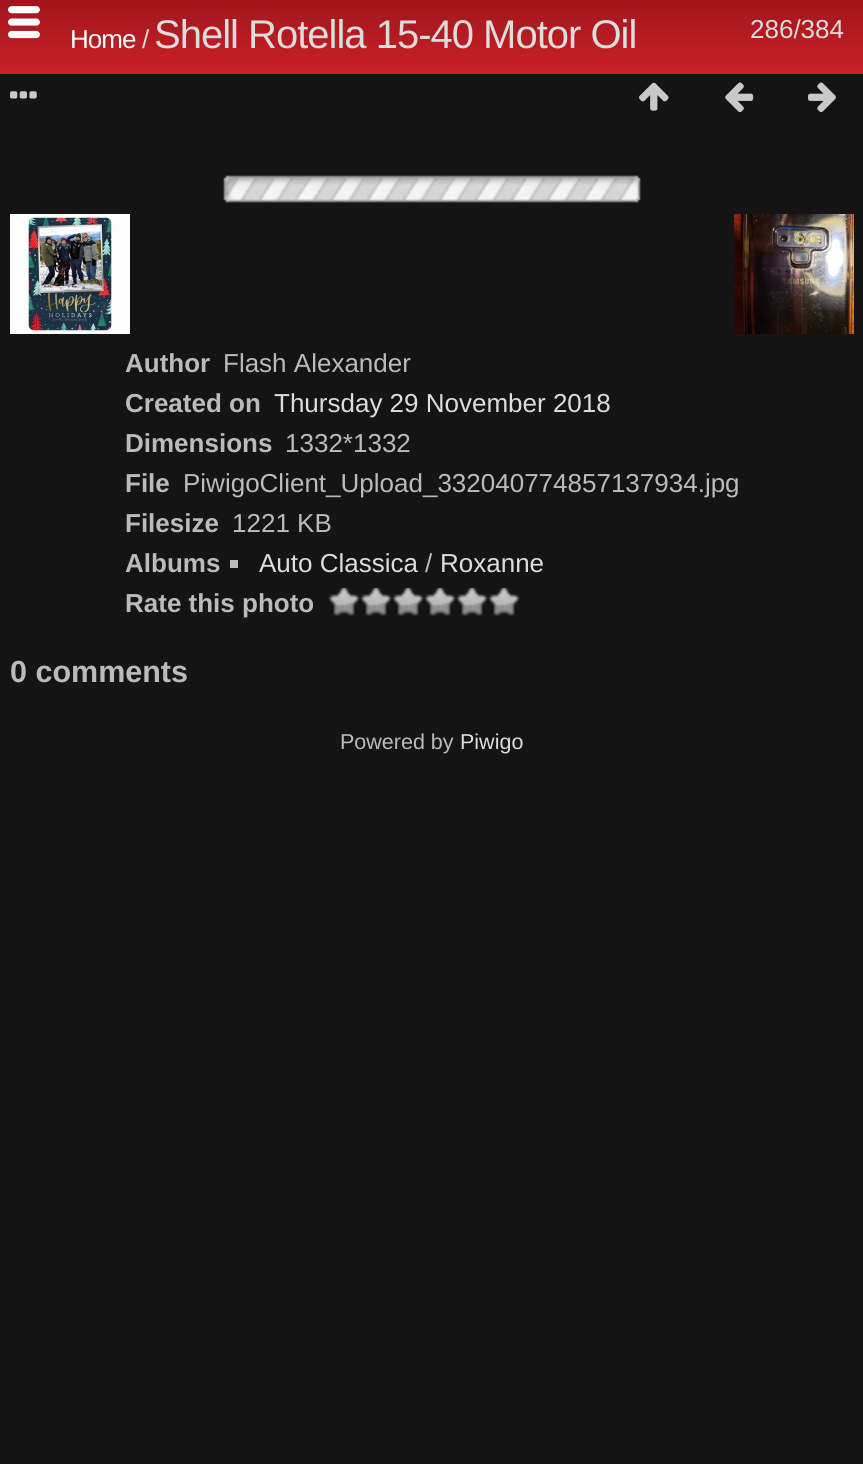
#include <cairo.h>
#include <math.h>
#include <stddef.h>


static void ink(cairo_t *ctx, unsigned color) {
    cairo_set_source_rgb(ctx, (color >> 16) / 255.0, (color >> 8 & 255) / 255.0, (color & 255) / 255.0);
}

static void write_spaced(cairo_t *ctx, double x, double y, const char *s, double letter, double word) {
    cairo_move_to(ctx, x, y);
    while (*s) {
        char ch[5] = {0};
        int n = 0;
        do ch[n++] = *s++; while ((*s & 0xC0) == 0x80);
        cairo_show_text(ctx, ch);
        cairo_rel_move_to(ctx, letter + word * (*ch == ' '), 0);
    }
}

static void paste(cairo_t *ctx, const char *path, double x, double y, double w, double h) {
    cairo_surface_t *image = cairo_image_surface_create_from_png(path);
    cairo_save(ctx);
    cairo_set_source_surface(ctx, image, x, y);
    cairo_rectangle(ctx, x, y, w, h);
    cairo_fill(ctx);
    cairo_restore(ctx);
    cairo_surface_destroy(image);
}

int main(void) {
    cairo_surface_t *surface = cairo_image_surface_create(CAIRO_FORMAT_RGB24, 863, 1464);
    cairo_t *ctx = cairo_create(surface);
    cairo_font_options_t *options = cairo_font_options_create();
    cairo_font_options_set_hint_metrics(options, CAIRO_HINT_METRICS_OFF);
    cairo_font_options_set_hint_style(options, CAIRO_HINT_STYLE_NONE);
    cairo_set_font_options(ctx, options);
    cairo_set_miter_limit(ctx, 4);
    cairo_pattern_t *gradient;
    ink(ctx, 0x141414);
    cairo_paint(ctx);
    gradient = cairo_pattern_create_linear(432, 0, 432, 74);
    cairo_pattern_add_color_stop_rgba(gradient, 0, 0.627, 0.09, 0.11, 1);
    cairo_pattern_add_color_stop_rgba(gradient, 1, 0.796, 0.125, 0.153, 1);
    cairo_set_source(ctx, gradient);
    cairo_pattern_destroy(gradient);
    cairo_rectangle(ctx, 0, 0, 863, 74);
    cairo_fill(ctx);
    paste(ctx, "media/1.png", 8, 6, 32, 33);
    cairo_select_font_face(ctx, "Liberation Sans", CAIRO_FONT_SLANT_NORMAL, CAIRO_FONT_WEIGHT_NORMAL);
    cairo_set_font_size(ctx, 26);
    ink(ctx, 0xFFFFFF);
    write_spaced(ctx, 70, 48, "Home", -1, 0);
    ink(ctx, 0xDDDDDD);
    write_spaced(ctx, 142, 48, "/", -1, 0);
    cairo_set_font_size(ctx, 40);
    write_spaced(ctx, 154, 48, "Shell Rotella 15-40 Motor Oil", -1, 0);
    cairo_set_font_size(ctx, 26);
    cairo_move_to(ctx, 750, 38);
    cairo_show_text(ctx, "286/384");
    paste(ctx, "media/2.png", 10, 91, 27, 8);
    paste(ctx, "media/3.png", 639, 82, 30, 29);
    paste(ctx, "media/4.png", 725, 82, 29, 30);
    paste(ctx, "media/5.png", 808, 82, 28, 31);
    paste(ctx, "media/6.png", 223, 175, 418, 28);
    paste(ctx, "media/7.png", 10, 214, 120, 120);
    paste(ctx, "media/8.png", 734, 214, 120, 120);
    cairo_select_font_face(ctx, "Liberation Sans", CAIRO_FONT_SLANT_NORMAL, CAIRO_FONT_WEIGHT_BOLD);
    ink(ctx, 0xBBBBBB);
    cairo_move_to(ctx, 125, 372);
    cairo_show_text(ctx, "Author");
    cairo_select_font_face(ctx, "Liberation Sans", CAIRO_FONT_SLANT_NORMAL, CAIRO_FONT_WEIGHT_NORMAL);
    cairo_move_to(ctx, 223, 372);
    cairo_show_text(ctx, "Flash Alexander");
    cairo_select_font_face(ctx, "Liberation Sans", CAIRO_FONT_SLANT_NORMAL, CAIRO_FONT_WEIGHT_BOLD);
    cairo_move_to(ctx, 125, 412);
    cairo_show_text(ctx, "Created on");
    cairo_select_font_face(ctx, "Liberation Sans", CAIRO_FONT_SLANT_NORMAL, CAIRO_FONT_WEIGHT_NORMAL);
    ink(ctx, 0xDDDDDD);
    cairo_move_to(ctx, 274, 412);
    cairo_show_text(ctx, "Thursday 29 November 2018");
    cairo_select_font_face(ctx, "Liberation Sans", CAIRO_FONT_SLANT_NORMAL, CAIRO_FONT_WEIGHT_BOLD);
    ink(ctx, 0xBBBBBB);
    cairo_move_to(ctx, 125, 452);
    cairo_show_text(ctx, "Dimensions");
    cairo_select_font_face(ctx, "Liberation Sans", CAIRO_FONT_SLANT_NORMAL, CAIRO_FONT_WEIGHT_NORMAL);
    cairo_move_to(ctx, 285, 452);
    cairo_show_text(ctx, "1332*1332");
    cairo_select_font_face(ctx, "Liberation Sans", CAIRO_FONT_SLANT_NORMAL, CAIRO_FONT_WEIGHT_BOLD);
    cairo_move_to(ctx, 125, 492);
    cairo_show_text(ctx, "File");
    cairo_select_font_face(ctx, "Liberation Sans", CAIRO_FONT_SLANT_NORMAL, CAIRO_FONT_WEIGHT_NORMAL);
    cairo_move_to(ctx, 183, 492);
    cairo_show_text(ctx, "PiwigoClient_Upload_332040774857137934.jpg");
    cairo_select_font_face(ctx, "Liberation Sans", CAIRO_FONT_SLANT_NORMAL, CAIRO_FONT_WEIGHT_BOLD);
    cairo_move_to(ctx, 125, 532);
    cairo_show_text(ctx, "Filesize");
    cairo_select_font_face(ctx, "Liberation Sans", CAIRO_FONT_SLANT_NORMAL, CAIRO_FONT_WEIGHT_NORMAL);
    cairo_move_to(ctx, 232, 532);
    cairo_show_text(ctx, "1221 KB");
    cairo_select_font_face(ctx, "Liberation Sans", CAIRO_FONT_SLANT_NORMAL, CAIRO_FONT_WEIGHT_BOLD);
    cairo_move_to(ctx, 125, 572);
    cairo_show_text(ctx, "Albums");
    cairo_rectangle(ctx, 230, 560, 8, 8);
    cairo_fill(ctx);
    cairo_select_font_face(ctx, "Liberation Sans", CAIRO_FONT_SLANT_NORMAL, CAIRO_FONT_WEIGHT_NORMAL);
    ink(ctx, 0xDDDDDD);
    cairo_move_to(ctx, 259, 572);
    cairo_show_text(ctx, "Auto Classica");
    ink(ctx, 0xBBBBBB);
    cairo_move_to(ctx, 425, 572);
    cairo_show_text(ctx, "/");
    ink(ctx, 0xDDDDDD);
    cairo_move_to(ctx, 440, 572);
    cairo_show_text(ctx, "Roxanne");
    cairo_select_font_face(ctx, "Liberation Sans", CAIRO_FONT_SLANT_NORMAL, CAIRO_FONT_WEIGHT_BOLD);
    ink(ctx, 0xBBBBBB);
    cairo_move_to(ctx, 125, 612);
    cairo_show_text(ctx, "Rate this photo");
    paste(ctx, "media/9.png", 328, 588, 32, 28);
    paste(ctx, "media/9.png", 360, 588, 32, 28);
    paste(ctx, "media/9.png", 392, 588, 32, 28);
    paste(ctx, "media/9.png", 424, 588, 32, 28);
    paste(ctx, "media/9.png", 456, 588, 32, 28);
    paste(ctx, "media/9.png", 488, 588, 32, 28);
    cairo_set_font_size(ctx, 30.5);
    cairo_move_to(ctx, 10, 682);
    cairo_show_text(ctx, "0 comments");
    cairo_select_font_face(ctx, "Liberation Sans", CAIRO_FONT_SLANT_NORMAL, CAIRO_FONT_WEIGHT_NORMAL);
    cairo_set_font_size(ctx, 21.5);
    cairo_move_to(ctx, 340, 749);
    cairo_show_text(ctx, "Powered by");
    ink(ctx, 0xDDDDDD);
    cairo_move_to(ctx, 460, 749);
    cairo_show_text(ctx, "Piwigo");
    cairo_surface_write_to_png(surface, "image.png");
    cairo_font_options_destroy(options);
    cairo_destroy(ctx);
    cairo_surface_destroy(surface);
    return 0;
}
